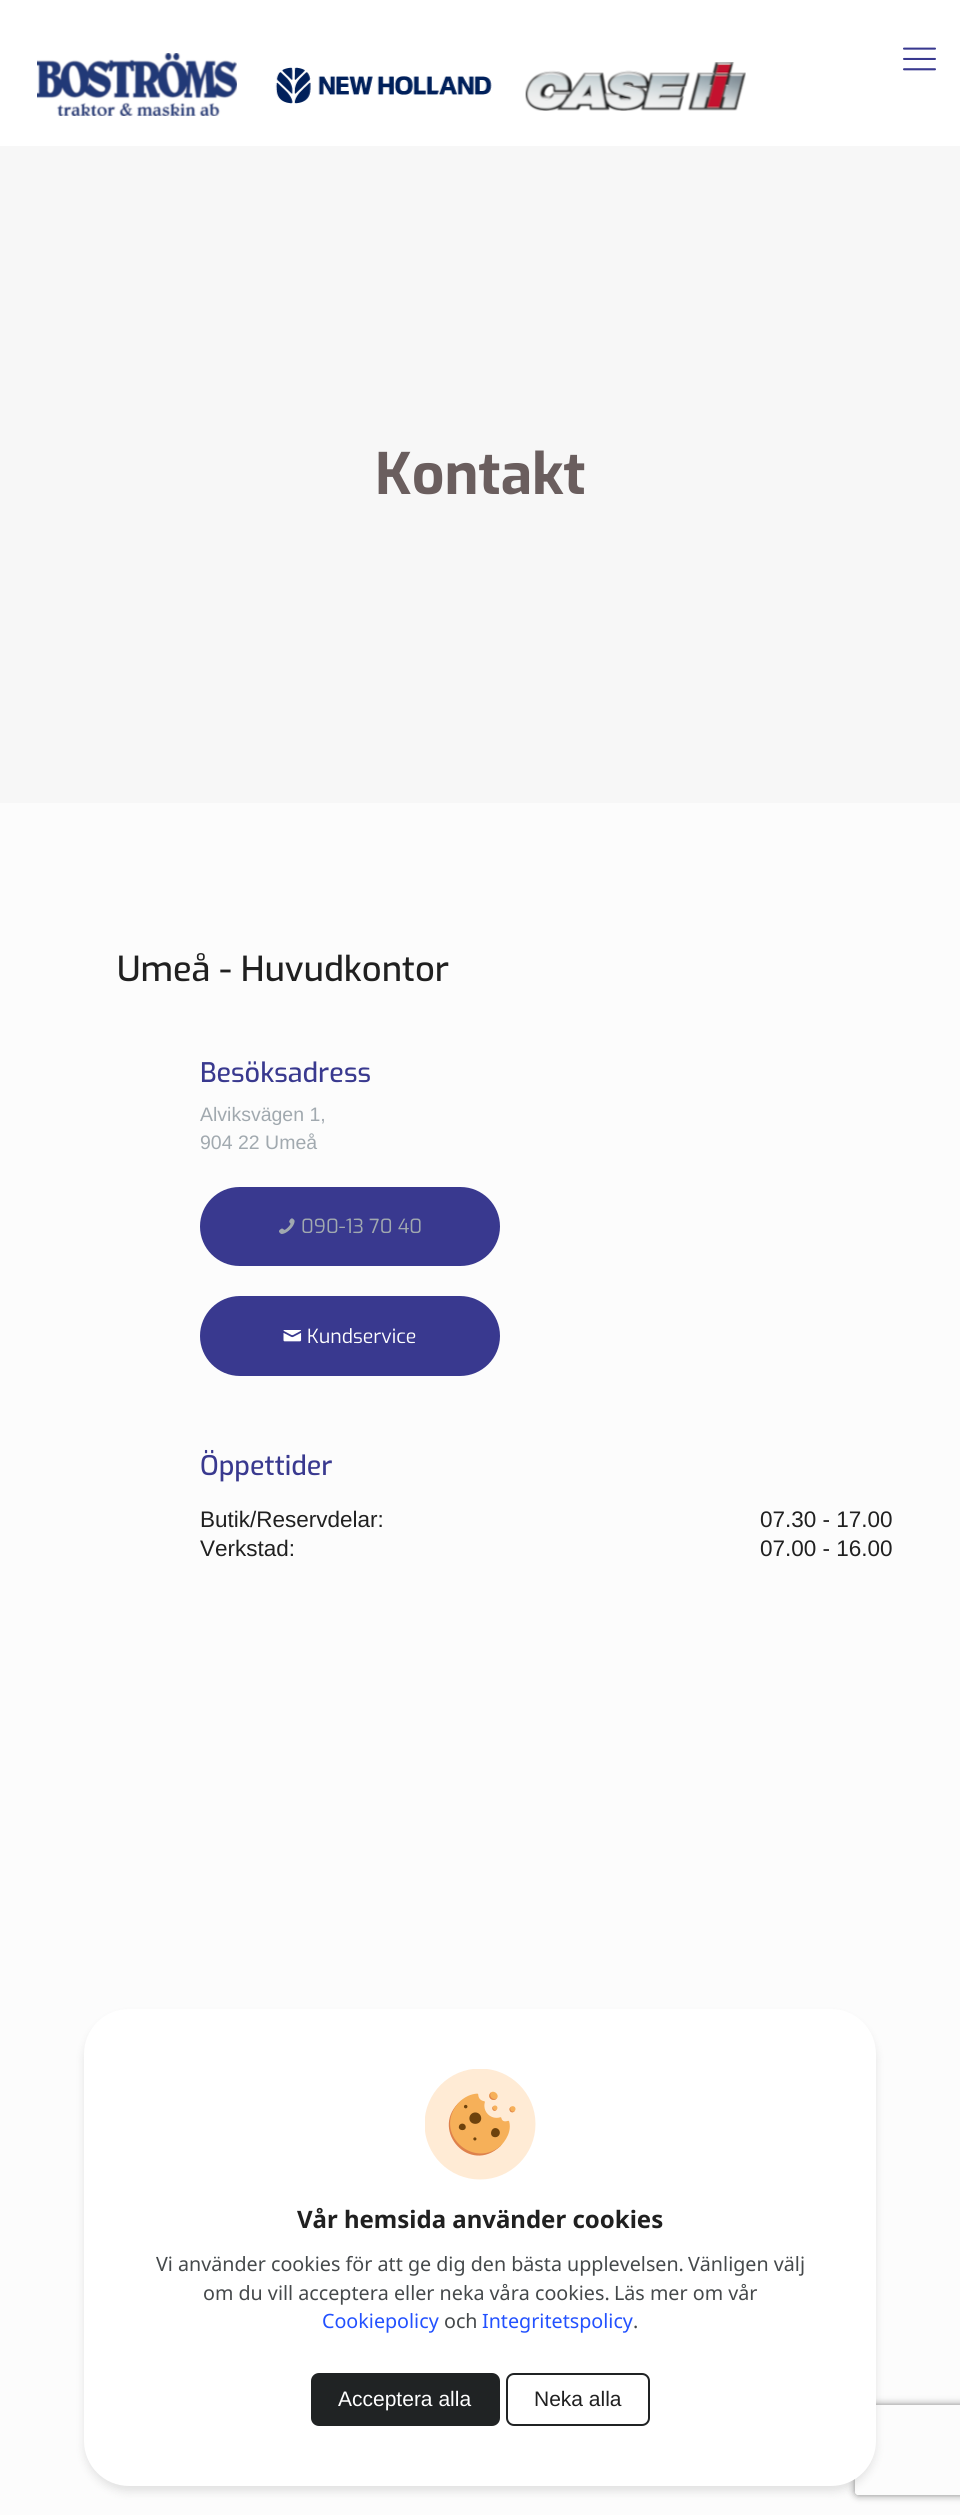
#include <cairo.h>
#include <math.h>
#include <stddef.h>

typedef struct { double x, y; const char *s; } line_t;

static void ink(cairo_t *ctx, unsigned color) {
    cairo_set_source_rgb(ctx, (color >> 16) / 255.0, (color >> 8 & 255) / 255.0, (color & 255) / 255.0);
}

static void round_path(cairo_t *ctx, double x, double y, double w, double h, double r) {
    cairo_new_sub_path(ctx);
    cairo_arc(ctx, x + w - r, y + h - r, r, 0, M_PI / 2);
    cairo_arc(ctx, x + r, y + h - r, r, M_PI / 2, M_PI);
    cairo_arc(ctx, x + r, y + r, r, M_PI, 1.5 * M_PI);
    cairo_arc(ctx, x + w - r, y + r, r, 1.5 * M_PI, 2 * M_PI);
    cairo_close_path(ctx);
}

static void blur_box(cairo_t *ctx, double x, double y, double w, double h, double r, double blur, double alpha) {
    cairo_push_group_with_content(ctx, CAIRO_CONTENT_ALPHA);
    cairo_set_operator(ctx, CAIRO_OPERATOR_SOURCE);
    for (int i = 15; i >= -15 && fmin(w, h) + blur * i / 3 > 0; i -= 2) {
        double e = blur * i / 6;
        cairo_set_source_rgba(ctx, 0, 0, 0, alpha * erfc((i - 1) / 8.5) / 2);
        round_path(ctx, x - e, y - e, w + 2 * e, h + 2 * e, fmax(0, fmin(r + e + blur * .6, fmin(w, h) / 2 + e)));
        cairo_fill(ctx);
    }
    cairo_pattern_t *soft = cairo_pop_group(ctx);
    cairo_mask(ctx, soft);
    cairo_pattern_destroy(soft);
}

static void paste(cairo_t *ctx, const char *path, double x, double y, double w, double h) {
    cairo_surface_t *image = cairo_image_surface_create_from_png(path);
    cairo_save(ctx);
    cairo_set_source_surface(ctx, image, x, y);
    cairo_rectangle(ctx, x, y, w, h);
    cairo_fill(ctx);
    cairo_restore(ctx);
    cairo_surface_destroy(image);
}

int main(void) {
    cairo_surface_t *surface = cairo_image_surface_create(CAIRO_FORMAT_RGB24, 960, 2515);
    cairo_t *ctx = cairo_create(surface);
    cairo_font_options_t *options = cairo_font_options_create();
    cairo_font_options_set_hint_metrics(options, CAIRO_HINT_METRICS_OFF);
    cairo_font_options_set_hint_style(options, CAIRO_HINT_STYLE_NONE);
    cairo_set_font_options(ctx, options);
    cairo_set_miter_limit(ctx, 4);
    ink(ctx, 0xFCFCFC);
    cairo_paint(ctx);
    ink(ctx, 0xFFFFFF);
    cairo_rectangle(ctx, 0, 0, 960, 146);
    cairo_fill(ctx);
    paste(ctx, "media/1.png", 37, 53, 709, 63);
    paste(ctx, "media/2.png", 903, 47, 33, 24);
    ink(ctx, 0xF7F7F7);
    cairo_rectangle(ctx, 0, 146, 960, 657);
    cairo_fill(ctx);
    cairo_select_font_face(ctx, "Exo", CAIRO_FONT_SLANT_NORMAL, CAIRO_FONT_WEIGHT_BOLD);
    cairo_set_font_size(ctx, 57);
    ink(ctx, 0x6A5E5E);
    cairo_move_to(ctx, 375, 494);
    cairo_show_text(ctx, "Kontakt");
    cairo_select_font_face(ctx, "Exo Medium", CAIRO_FONT_SLANT_NORMAL, CAIRO_FONT_WEIGHT_NORMAL);
    cairo_set_font_size(ctx, 34.5);
    ink(ctx, 0x202020);
    cairo_move_to(ctx, 117, 981);
    cairo_show_text(ctx, "Umeå - Huvudkontor");
    cairo_set_font_size(ctx, 27);
    ink(ctx, 0x39398F);
    cairo_move_to(ctx, 200, 1082);
    cairo_show_text(ctx, "Besöksadress");
    cairo_select_font_face(ctx, "Liberation Sans", CAIRO_FONT_SLANT_NORMAL, CAIRO_FONT_WEIGHT_NORMAL);
    cairo_set_font_size(ctx, 19.5);
    ink(ctx, 0xA1A9AF);
    cairo_move_to(ctx, 200, 1121);
    cairo_show_text(ctx, "Alviksvägen 1,");
    cairo_move_to(ctx, 200, 1149);
    cairo_show_text(ctx, "904 22 Umeå");
    ink(ctx, 0x39398F);
    round_path(ctx, 201.5, 1188.5, 297, 76, 38);
    cairo_fill_preserve(ctx);
    cairo_set_line_width(ctx, 3);
    cairo_stroke(ctx);
    paste(ctx, "media/3.png", 279, 1218, 16, 16);
    cairo_select_font_face(ctx, "Exo", CAIRO_FONT_SLANT_NORMAL, CAIRO_FONT_WEIGHT_NORMAL);
    ink(ctx, 0xA1A9AF);
    cairo_move_to(ctx, 301, 1233);
    cairo_show_text(ctx, "090-13 70 40");
    ink(ctx, 0x39398F);
    round_path(ctx, 201.5, 1297.5, 297, 77, 38.5);
    cairo_fill_preserve(ctx);
    cairo_stroke(ctx);
    paste(ctx, "media/4.png", 283, 1330, 19, 12);
    ink(ctx, 0xFFFFFF);
    cairo_move_to(ctx, 307, 1343);
    cairo_show_text(ctx, "Kundservice");
    cairo_select_font_face(ctx, "Exo Medium", CAIRO_FONT_SLANT_NORMAL, CAIRO_FONT_WEIGHT_NORMAL);
    cairo_set_font_size(ctx, 27);
    ink(ctx, 0x39398F);
    cairo_move_to(ctx, 200, 1475);
    cairo_show_text(ctx, "Öppettider");
    cairo_select_font_face(ctx, "Liberation Sans", CAIRO_FONT_SLANT_NORMAL, CAIRO_FONT_WEIGHT_NORMAL);
    cairo_set_font_size(ctx, 22.5);
    ink(ctx, 0x202020);
    {
        static const line_t items[] = {
            {200, 1527, "Butik/Reservdelar:"},
            {760, 1527, "07.30 - 17.00"},
            {200, 1556, "Verkstad:"},
            {760, 1556, "07.00 - 16.00"},
        };
        for (size_t i = 0; i < sizeof items / sizeof *items; i++) {
            cairo_move_to(ctx, items[i].x, items[i].y);
            cairo_show_text(ctx, items[i].s);
        }
    }
    ink(ctx, 0x000000);
    blur_box(ctx, 84, 2015, 792, 477, 45, 4.5, 0.1);
    cairo_save(ctx);
    cairo_set_fill_rule(ctx, CAIRO_FILL_RULE_EVEN_ODD);
    cairo_new_path(ctx);
    cairo_move_to(ctx, 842, 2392);
    cairo_line_to(ctx, 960, 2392);
    cairo_line_to(ctx, 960, 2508);
    cairo_line_to(ctx, 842, 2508);
    cairo_close_path(ctx);
    cairo_move_to(ctx, 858, 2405);
    cairo_line_to(ctx, 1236, 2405);
    cairo_curve_to(ctx, 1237.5, 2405, 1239, 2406.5, 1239, 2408);
    cairo_line_to(ctx, 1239, 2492);
    cairo_curve_to(ctx, 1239, 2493.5, 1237.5, 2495, 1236, 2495);
    cairo_line_to(ctx, 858, 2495);
    cairo_curve_to(ctx, 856.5, 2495, 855, 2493.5, 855, 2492);
    cairo_line_to(ctx, 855, 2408);
    cairo_curve_to(ctx, 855, 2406.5, 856.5, 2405, 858, 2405);
    cairo_close_path(ctx);
    cairo_clip(ctx);
    ink(ctx, 0x808080);
    blur_box(ctx, 855, 2405, 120, 90, 3, 4, 1);
    cairo_restore(ctx);
    ink(ctx, 0xFFFFFF);
    round_path(ctx, 84, 2009, 792, 477, 45);
    cairo_fill(ctx);
    paste(ctx, "media/5.png", 425, 2069, 111, 111);
    cairo_select_font_face(ctx, "Noto Sans", CAIRO_FONT_SLANT_NORMAL, CAIRO_FONT_WEIGHT_BOLD);
    cairo_set_font_size(ctx, 24);
    ink(ctx, 0x202020);
    cairo_move_to(ctx, 297, 2228);
    cairo_show_text(ctx, "Vår hemsida använder cookies");
    cairo_select_font_face(ctx, "Noto Sans", CAIRO_FONT_SLANT_NORMAL, CAIRO_FONT_WEIGHT_NORMAL);
    cairo_set_font_size(ctx, 19.7);
    ink(ctx, 0x45494B);
    {
        static const line_t items[] = {
            {156, 2271, "Vi använder cookies för att ge dig den bästa upplevelsen."},
            {688, 2271, "Vänligen välj"},
            {203, 2300, "om du vill acceptera eller neka våra cookies."},
            {614, 2300, "Läs mer om vår"},
        };
        for (size_t i = 0; i < sizeof items / sizeof *items; i++) {
            cairo_move_to(ctx, items[i].x, items[i].y);
            cairo_show_text(ctx, items[i].s);
        }
    }
    ink(ctx, 0x2251FF);
    cairo_move_to(ctx, 322, 2328);
    cairo_show_text(ctx, "Cookiepolicy");
    ink(ctx, 0x45494B);
    cairo_move_to(ctx, 444, 2328);
    cairo_show_text(ctx, "och");
    ink(ctx, 0x2251FF);
    cairo_move_to(ctx, 482, 2328);
    cairo_show_text(ctx, "Integritetspolicy");
    ink(ctx, 0x45494B);
    cairo_move_to(ctx, 633, 2328);
    cairo_show_text(ctx, ".");
    ink(ctx, 0x202324);
    round_path(ctx, 312, 2374, 187, 51, 7);
    cairo_fill_preserve(ctx);
    cairo_set_line_width(ctx, 2);
    cairo_stroke(ctx);
    cairo_select_font_face(ctx, "Liberation Sans", CAIRO_FONT_SLANT_NORMAL, CAIRO_FONT_WEIGHT_NORMAL);
    cairo_set_font_size(ctx, 21);
    ink(ctx, 0xFFFFFF);
    cairo_move_to(ctx, 338, 2406);
    cairo_show_text(ctx, "Acceptera alla");
    round_path(ctx, 507, 2374, 142, 51, 7);
    ink(ctx, 0x202324);
    cairo_stroke(ctx);
    ink(ctx, 0x202020);
    cairo_move_to(ctx, 534, 2406);
    cairo_show_text(ctx, "Neka alla");
    cairo_surface_write_to_png(surface, "image.png");
    cairo_font_options_destroy(options);
    cairo_destroy(ctx);
    cairo_surface_destroy(surface);
    return 0;
}
